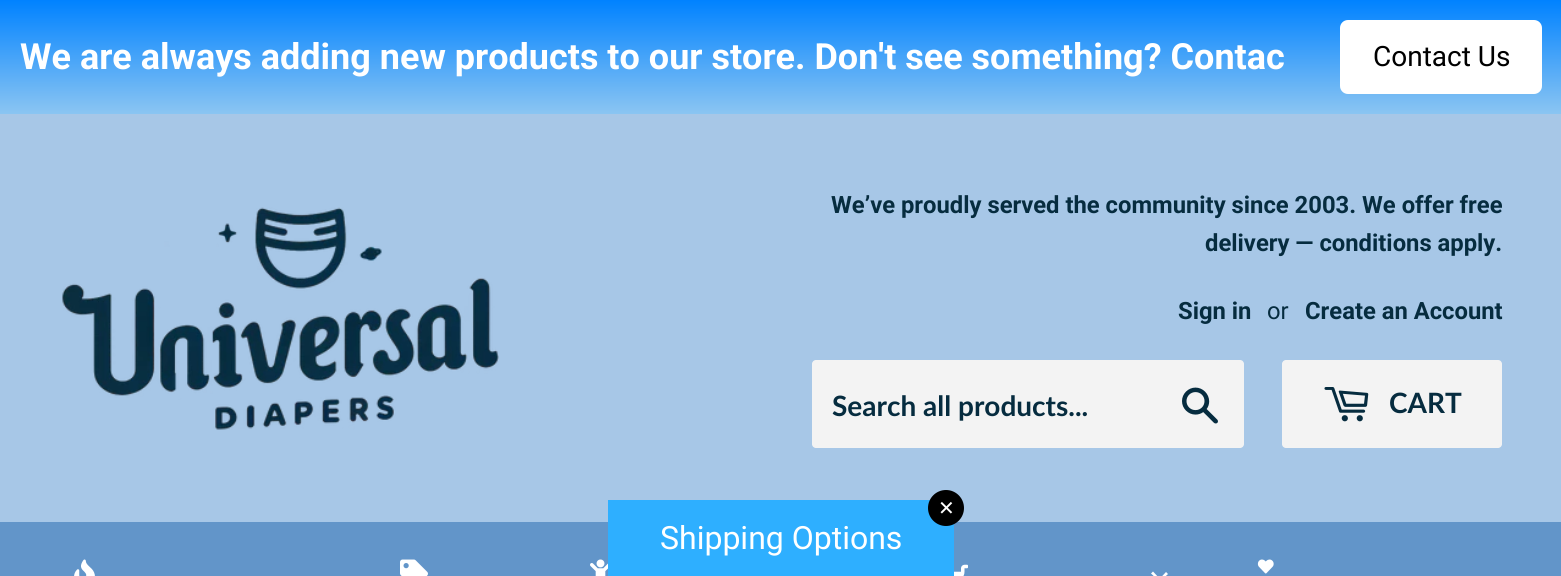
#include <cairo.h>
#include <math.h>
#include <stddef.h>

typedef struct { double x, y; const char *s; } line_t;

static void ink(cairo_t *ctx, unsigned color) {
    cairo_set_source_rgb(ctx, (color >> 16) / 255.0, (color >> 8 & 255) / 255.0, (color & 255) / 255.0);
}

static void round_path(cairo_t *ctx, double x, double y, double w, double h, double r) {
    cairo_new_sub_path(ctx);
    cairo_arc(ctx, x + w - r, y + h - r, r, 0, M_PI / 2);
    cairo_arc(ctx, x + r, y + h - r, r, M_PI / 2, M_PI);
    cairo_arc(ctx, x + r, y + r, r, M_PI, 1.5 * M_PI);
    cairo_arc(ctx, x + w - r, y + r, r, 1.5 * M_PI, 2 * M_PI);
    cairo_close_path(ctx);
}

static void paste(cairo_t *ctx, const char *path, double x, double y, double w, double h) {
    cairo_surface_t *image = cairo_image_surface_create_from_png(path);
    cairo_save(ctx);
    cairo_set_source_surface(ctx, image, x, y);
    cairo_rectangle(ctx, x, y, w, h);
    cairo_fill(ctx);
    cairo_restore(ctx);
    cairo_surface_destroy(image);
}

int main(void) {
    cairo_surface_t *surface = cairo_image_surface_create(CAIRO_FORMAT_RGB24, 1561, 576);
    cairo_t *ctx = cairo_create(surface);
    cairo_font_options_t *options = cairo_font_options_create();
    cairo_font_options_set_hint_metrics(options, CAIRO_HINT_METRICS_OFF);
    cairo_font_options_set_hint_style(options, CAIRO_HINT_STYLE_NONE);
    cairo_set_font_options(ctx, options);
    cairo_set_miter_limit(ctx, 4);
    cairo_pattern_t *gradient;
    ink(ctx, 0xA7C7E7);
    cairo_paint(ctx);
    gradient = cairo_pattern_create_linear(781, 114, 781, 0);
    cairo_pattern_add_color_stop_rgba(gradient, 0, 0.545, 0.773, 0.949, 1);
    cairo_pattern_add_color_stop_rgba(gradient, 1, 0, 0.51, 1, 1);
    cairo_set_source(ctx, gradient);
    cairo_pattern_destroy(gradient);
    cairo_rectangle(ctx, 0, 0, 1561, 114);
    cairo_fill(ctx);
    cairo_select_font_face(ctx, "Roboto", CAIRO_FONT_SLANT_NORMAL, CAIRO_FONT_WEIGHT_BOLD);
    cairo_set_font_size(ctx, 36);
    ink(ctx, 0xFFFFFF);
    cairo_move_to(ctx, 20, 69);
    cairo_show_text(ctx, "We are always adding new products to our store. Don't see something? Contac");
    round_path(ctx, 1340, 20, 202, 74, 8);
    cairo_fill(ctx);
    cairo_select_font_face(ctx, "Roboto", CAIRO_FONT_SLANT_NORMAL, CAIRO_FONT_WEIGHT_NORMAL);
    cairo_set_font_size(ctx, 28);
    ink(ctx, 0x000000);
    cairo_move_to(ctx, 1373, 66);
    cairo_show_text(ctx, "Contact Us");
    paste(ctx, "media/1.png", 62, 207, 437, 223);
    cairo_select_font_face(ctx, "Roboto", CAIRO_FONT_SLANT_NORMAL, CAIRO_FONT_WEIGHT_BOLD);
    cairo_set_font_size(ctx, 23.8);
    ink(ctx, 0x062C3F);
    {
        static const line_t items[] = {
            {831, 213, "We’ve proudly served the community since 2003. We offer free"},
            {1205, 251, "delivery — conditions apply."},
            {1178, 319, "Sign in"},
        };
        for (size_t i = 0; i < sizeof items / sizeof *items; i++) {
            cairo_move_to(ctx, items[i].x, items[i].y);
            cairo_show_text(ctx, items[i].s);
        }
    }
    cairo_select_font_face(ctx, "Roboto", CAIRO_FONT_SLANT_NORMAL, CAIRO_FONT_WEIGHT_NORMAL);
    cairo_move_to(ctx, 1267, 319);
    cairo_show_text(ctx, "or");
    cairo_select_font_face(ctx, "Roboto", CAIRO_FONT_SLANT_NORMAL, CAIRO_FONT_WEIGHT_BOLD);
    cairo_move_to(ctx, 1305, 319);
    cairo_show_text(ctx, "Create an Account");
    ink(ctx, 0xF3F3F3);
    round_path(ctx, 812, 360, 432, 88, 4);
    cairo_fill(ctx);
    cairo_select_font_face(ctx, "Lato", CAIRO_FONT_SLANT_NORMAL, CAIRO_FONT_WEIGHT_BOLD);
    cairo_set_font_size(ctx, 28);
    ink(ctx, 0x062C3F);
    cairo_move_to(ctx, 832, 416);
    cairo_show_text(ctx, "Search all products...");
    paste(ctx, "media/2.png", 1182, 387, 36, 37);
    ink(ctx, 0xF3F3F3);
    round_path(ctx, 1282, 360, 220, 88, 4);
    cairo_fill(ctx);
    paste(ctx, "media/3.png", 1324, 387, 45, 35);
    ink(ctx, 0x062C3F);
    cairo_move_to(ctx, 1389, 413);
    cairo_show_text(ctx, "CART");
    ink(ctx, 0x6295C9);
    cairo_rectangle(ctx, 0, 522, 1561, 54);
    cairo_fill(ctx);
    paste(ctx, "media/4.png", 74, 559, 21, 17);
    paste(ctx, "media/5.png", 400, 559, 28, 17);
    paste(ctx, "media/6.png", 590, 559, 18, 17);
    paste(ctx, "media/7.png", 954, 564, 14, 12);
    ink(ctx, 0xFFFFFF);
    cairo_new_path(ctx);
    cairo_move_to(ctx, 1166, 572);
    cairo_line_to(ctx, 1168, 574);
    cairo_line_to(ctx, 1160, 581.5);
    cairo_line_to(ctx, 1158.5, 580);
    cairo_close_path(ctx);
    cairo_move_to(ctx, 1153, 571.5);
    cairo_line_to(ctx, 1161, 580);
    cairo_line_to(ctx, 1159.5, 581.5);
    cairo_line_to(ctx, 1151, 573.5);
    cairo_close_path(ctx);
    cairo_fill(ctx);
    paste(ctx, "media/8.png", 1257, 559, 17, 15);
    ink(ctx, 0x2EAFFF);
    cairo_rectangle(ctx, 608, 500, 346, 76);
    cairo_fill(ctx);
    ink(ctx, 0x000000);
    cairo_arc(ctx, 946, 508, 18, 0, 2 * M_PI);
    cairo_fill(ctx);
    cairo_select_font_face(ctx, "DejaVu Sans", CAIRO_FONT_SLANT_NORMAL, CAIRO_FONT_WEIGHT_NORMAL);
    cairo_set_font_size(ctx, 20);
    ink(ctx, 0xFFFFFF);
    cairo_move_to(ctx, 938, 515);
    cairo_show_text(ctx, "✕");
    cairo_select_font_face(ctx, "Roboto", CAIRO_FONT_SLANT_NORMAL, CAIRO_FONT_WEIGHT_NORMAL);
    cairo_set_font_size(ctx, 32);
    cairo_move_to(ctx, 660, 549);
    cairo_show_text(ctx, "Shipping Options");
    cairo_surface_write_to_png(surface, "image.png");
    cairo_font_options_destroy(options);
    cairo_destroy(ctx);
    cairo_surface_destroy(surface);
    return 0;
}
